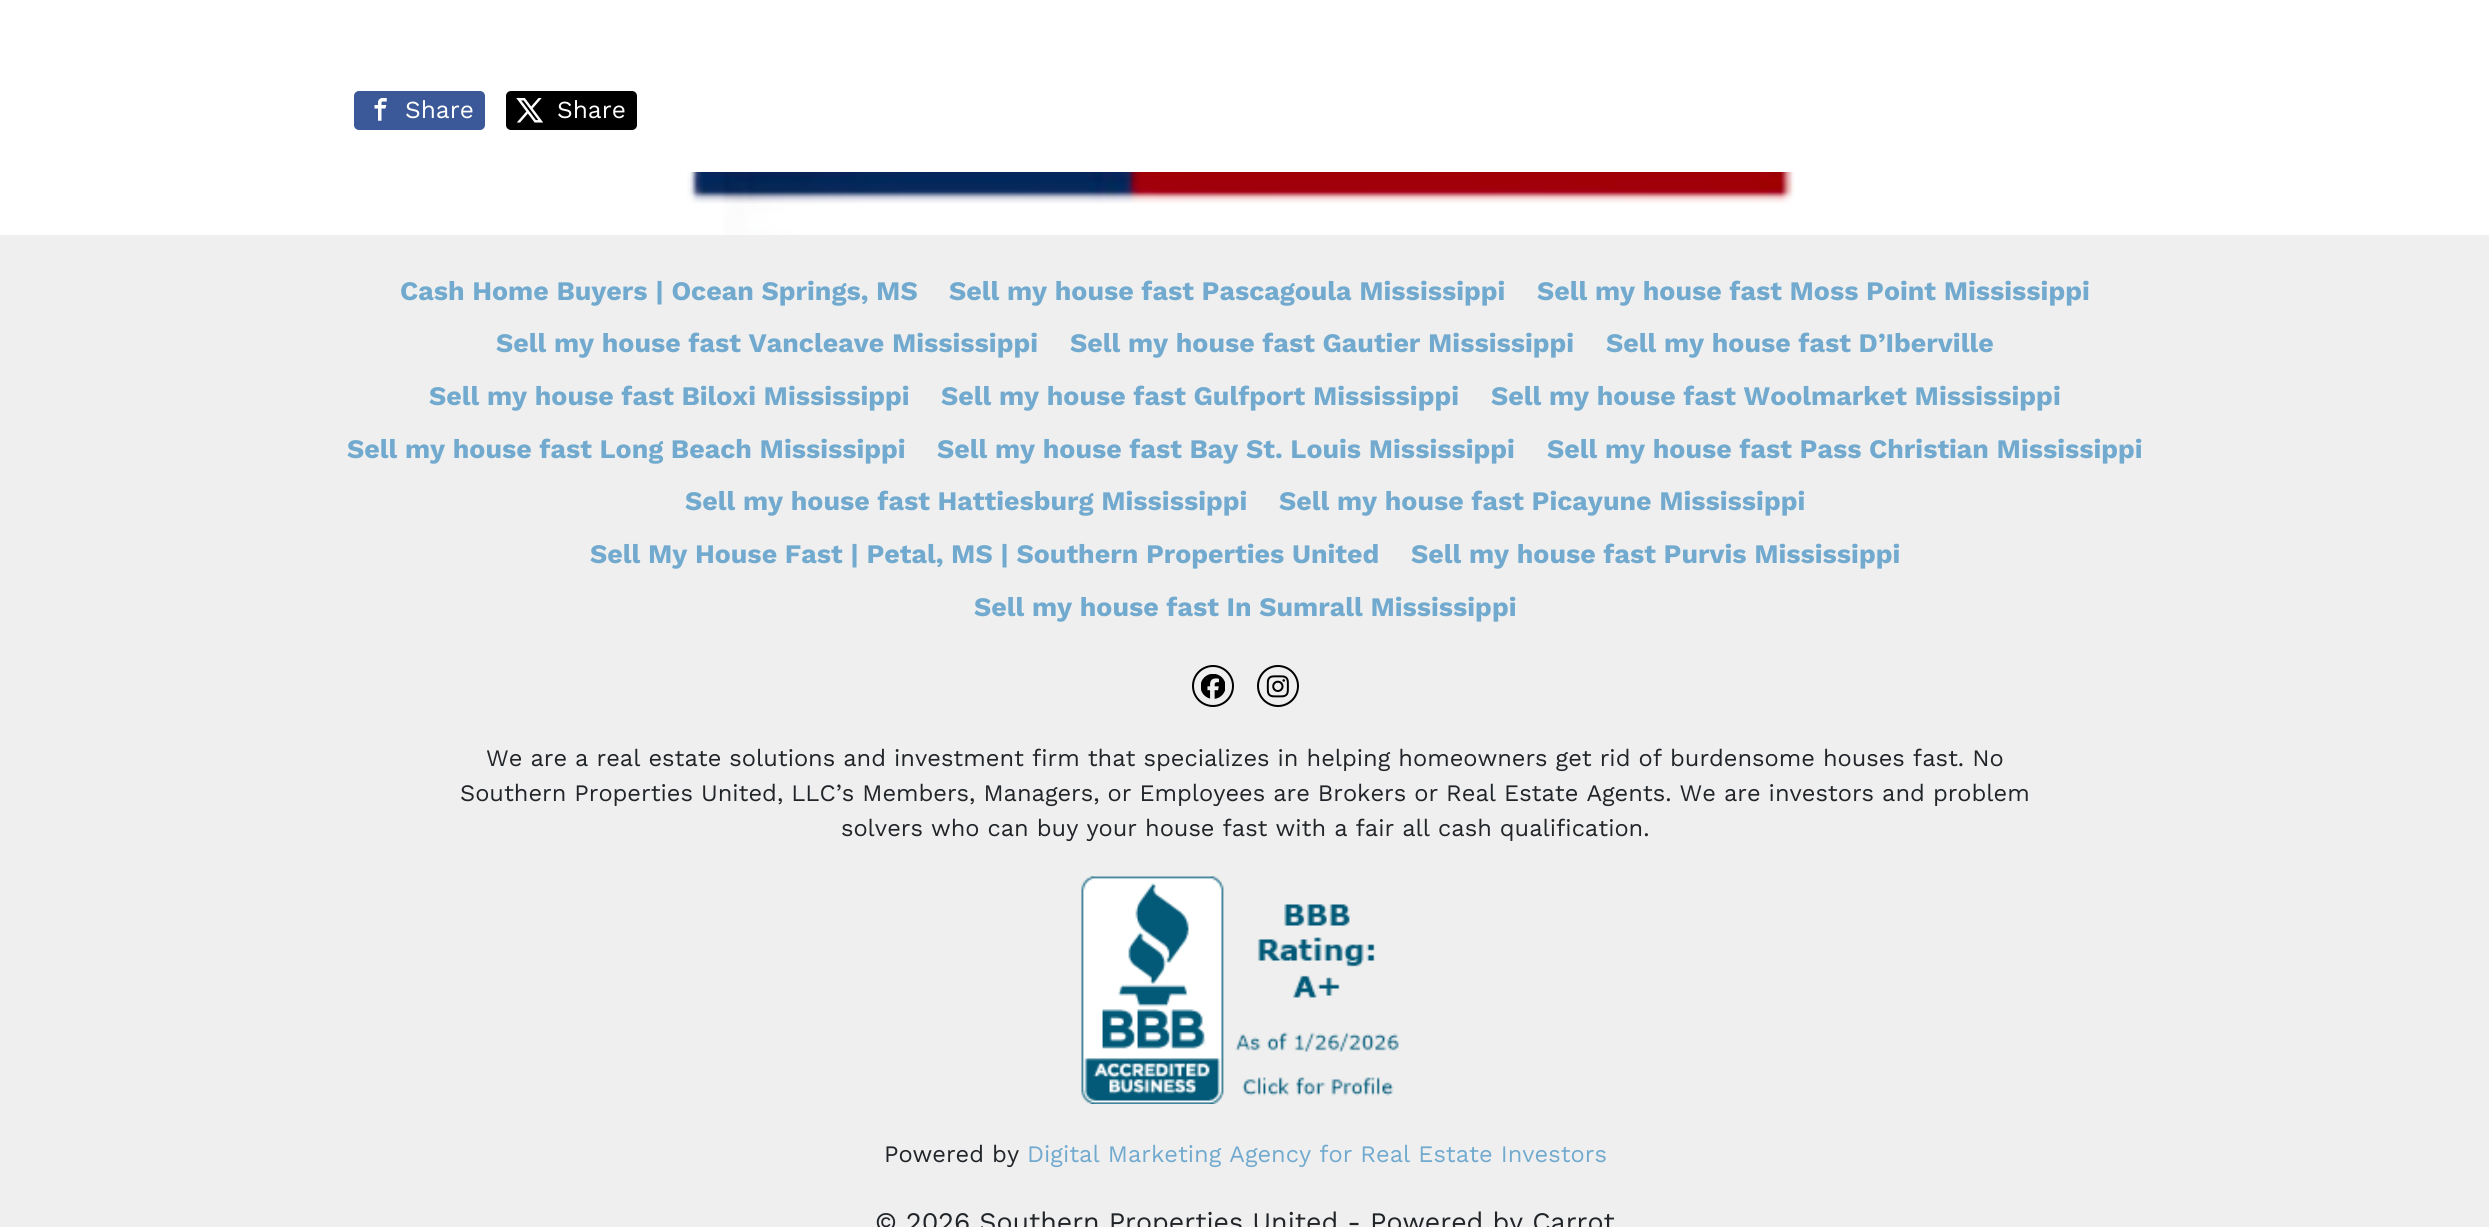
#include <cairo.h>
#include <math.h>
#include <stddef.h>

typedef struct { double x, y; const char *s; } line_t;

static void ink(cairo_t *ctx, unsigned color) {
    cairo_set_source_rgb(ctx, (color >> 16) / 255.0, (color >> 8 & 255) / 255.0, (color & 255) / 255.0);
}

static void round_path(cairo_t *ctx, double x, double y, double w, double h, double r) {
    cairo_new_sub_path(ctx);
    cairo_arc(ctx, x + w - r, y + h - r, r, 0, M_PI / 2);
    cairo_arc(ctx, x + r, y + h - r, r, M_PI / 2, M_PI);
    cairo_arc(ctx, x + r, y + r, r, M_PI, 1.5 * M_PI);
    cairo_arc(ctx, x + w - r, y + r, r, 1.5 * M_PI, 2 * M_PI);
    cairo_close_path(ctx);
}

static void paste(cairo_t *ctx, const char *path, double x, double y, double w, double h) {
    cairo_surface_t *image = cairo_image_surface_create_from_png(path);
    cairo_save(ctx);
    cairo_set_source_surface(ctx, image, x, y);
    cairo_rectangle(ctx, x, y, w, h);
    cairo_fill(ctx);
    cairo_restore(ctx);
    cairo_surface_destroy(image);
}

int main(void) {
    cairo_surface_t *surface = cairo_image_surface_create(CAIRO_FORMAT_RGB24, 2489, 1227);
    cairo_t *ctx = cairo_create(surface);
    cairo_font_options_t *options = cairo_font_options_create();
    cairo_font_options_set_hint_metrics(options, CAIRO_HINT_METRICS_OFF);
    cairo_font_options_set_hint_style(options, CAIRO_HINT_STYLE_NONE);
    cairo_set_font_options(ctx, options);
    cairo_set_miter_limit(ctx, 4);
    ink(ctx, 0xFFFFFF);
    cairo_paint(ctx);
    paste(ctx, "media/1.png", 687, 172, 1108, 63);
    ink(ctx, 0x3B5998);
    round_path(ctx, 354, 91, 131, 39, 5);
    cairo_fill(ctx);
    paste(ctx, "media/2.png", 374, 98, 13, 23);
    cairo_select_font_face(ctx, "Work Sans", CAIRO_FONT_SLANT_NORMAL, CAIRO_FONT_WEIGHT_NORMAL);
    cairo_set_font_size(ctx, 24.5);
    ink(ctx, 0xFFFFFF);
    cairo_move_to(ctx, 405, 118);
    cairo_show_text(ctx, "Share");
    ink(ctx, 0x000000);
    round_path(ctx, 506, 91, 131, 39, 5);
    cairo_fill(ctx);
    paste(ctx, "media/3.png", 516, 98, 28, 25);
    ink(ctx, 0xFFFFFF);
    cairo_move_to(ctx, 557, 118);
    cairo_show_text(ctx, "Share");
    ink(ctx, 0xEFEFEF);
    cairo_rectangle(ctx, 0, 235, 2489, 992);
    cairo_fill(ctx);
    cairo_select_font_face(ctx, "Work Sans", CAIRO_FONT_SLANT_NORMAL, CAIRO_FONT_WEIGHT_BOLD);
    cairo_set_font_size(ctx, 26.75);
    ink(ctx, 0x71AACE);
    {
        static const line_t items[] = {
            {400, 300, "Cash Home Buyers | Ocean Springs, MS"},
            {949, 300, "Sell my house fast Pascagoula Mississippi"},
            {1537, 300, "Sell my house fast Moss Point Mississippi"},
            {496, 352, "Sell my house fast Vancleave Mississippi"},
            {1070, 352, "Sell my house fast Gautier Mississippi"},
            {1606, 352, "Sell my house fast D’Iberville"},
            {429, 405, "Sell my house fast Biloxi Mississippi"},
            {941, 405, "Sell my house fast Gulfport Mississippi"},
            {1491, 405, "Sell my house fast Woolmarket Mississippi"},
            {347, 458, "Sell my house fast Long Beach Mississippi"},
            {937, 458, "Sell my house fast Bay St. Louis Mississippi"},
            {1547, 458, "Sell my house fast Pass Christian Mississippi"},
            {685, 510, "Sell my house fast Hattiesburg Mississippi"},
            {1279, 510, "Sell my house fast Picayune Mississippi"},
            {590, 563, "Sell My House Fast | Petal, MS | Southern Properties United"},
            {1411, 563, "Sell my house fast Purvis Mississippi"},
            {974, 616, "Sell my house fast In Sumrall Mississippi"},
        };
        for (size_t i = 0; i < sizeof items / sizeof *items; i++) {
            cairo_move_to(ctx, items[i].x, items[i].y);
            cairo_show_text(ctx, items[i].s);
        }
    }
    cairo_new_path(ctx);
    cairo_arc(ctx, 1213, 686, 20, 0, 2 * M_PI);
    ink(ctx, 0x000000);
    cairo_stroke(ctx);
    paste(ctx, "media/4.png", 1201, 674, 24, 25);
    cairo_arc(ctx, 1278, 686, 20, 0, 2 * M_PI);
    cairo_stroke(ctx);
    paste(ctx, "media/5.png", 1266, 675, 23, 23);
    cairo_select_font_face(ctx, "Work Sans", CAIRO_FONT_SLANT_NORMAL, CAIRO_FONT_WEIGHT_NORMAL);
    cairo_set_font_size(ctx, 23.62);
    ink(ctx, 0x212529);
    {
        static const line_t items[] = {
            {486, 766, "We are a real estate solutions and investment firm that specializes in helping homeowners get rid of burdensome houses fast. No"},
            {460, 801, "Southern Properties United, LLC’s Members, Managers, or Employees are Brokers or Real Estate Agents. We are investors and problem"},
            {841, 836, "solvers who can buy your house fast with a fair all cash qualification."},
        };
        for (size_t i = 0; i < sizeof items / sizeof *items; i++) {
            cairo_move_to(ctx, items[i].x, items[i].y);
            cairo_show_text(ctx, items[i].s);
        }
    }
    paste(ctx, "media/6.png", 1081, 876, 318, 228);
    cairo_move_to(ctx, 884, 1162);
    cairo_show_text(ctx, "Powered by");
    ink(ctx, 0x71AACE);
    cairo_move_to(ctx, 1027, 1162);
    cairo_show_text(ctx, "Digital Marketing Agency for Real Estate Investors");
    cairo_set_font_size(ctx, 26.75);
    ink(ctx, 0x212529);
    cairo_move_to(ctx, 875, 1231);
    cairo_show_text(ctx, "© 2026 Southern Properties United - Powered by Carrot");
    cairo_surface_write_to_png(surface, "image.png");
    cairo_font_options_destroy(options);
    cairo_destroy(ctx);
    cairo_surface_destroy(surface);
    return 0;
}
